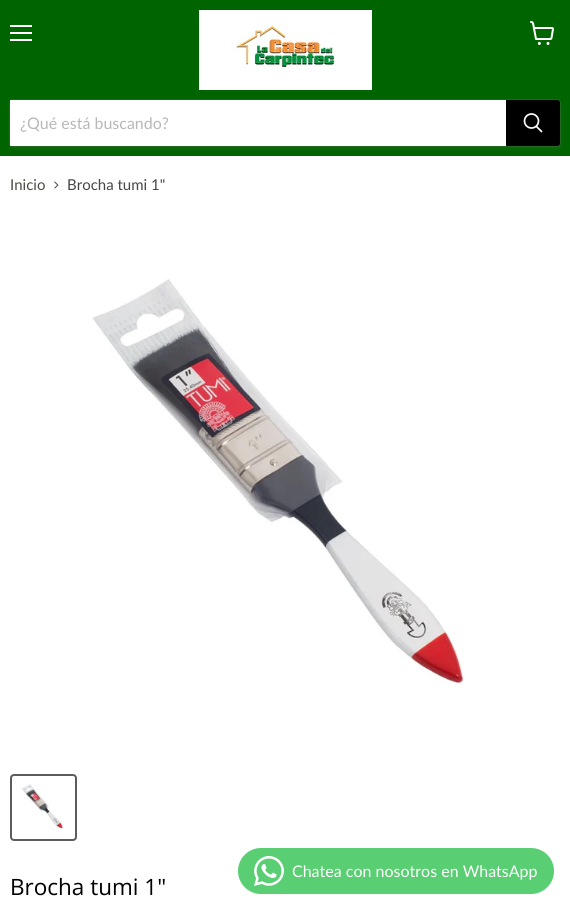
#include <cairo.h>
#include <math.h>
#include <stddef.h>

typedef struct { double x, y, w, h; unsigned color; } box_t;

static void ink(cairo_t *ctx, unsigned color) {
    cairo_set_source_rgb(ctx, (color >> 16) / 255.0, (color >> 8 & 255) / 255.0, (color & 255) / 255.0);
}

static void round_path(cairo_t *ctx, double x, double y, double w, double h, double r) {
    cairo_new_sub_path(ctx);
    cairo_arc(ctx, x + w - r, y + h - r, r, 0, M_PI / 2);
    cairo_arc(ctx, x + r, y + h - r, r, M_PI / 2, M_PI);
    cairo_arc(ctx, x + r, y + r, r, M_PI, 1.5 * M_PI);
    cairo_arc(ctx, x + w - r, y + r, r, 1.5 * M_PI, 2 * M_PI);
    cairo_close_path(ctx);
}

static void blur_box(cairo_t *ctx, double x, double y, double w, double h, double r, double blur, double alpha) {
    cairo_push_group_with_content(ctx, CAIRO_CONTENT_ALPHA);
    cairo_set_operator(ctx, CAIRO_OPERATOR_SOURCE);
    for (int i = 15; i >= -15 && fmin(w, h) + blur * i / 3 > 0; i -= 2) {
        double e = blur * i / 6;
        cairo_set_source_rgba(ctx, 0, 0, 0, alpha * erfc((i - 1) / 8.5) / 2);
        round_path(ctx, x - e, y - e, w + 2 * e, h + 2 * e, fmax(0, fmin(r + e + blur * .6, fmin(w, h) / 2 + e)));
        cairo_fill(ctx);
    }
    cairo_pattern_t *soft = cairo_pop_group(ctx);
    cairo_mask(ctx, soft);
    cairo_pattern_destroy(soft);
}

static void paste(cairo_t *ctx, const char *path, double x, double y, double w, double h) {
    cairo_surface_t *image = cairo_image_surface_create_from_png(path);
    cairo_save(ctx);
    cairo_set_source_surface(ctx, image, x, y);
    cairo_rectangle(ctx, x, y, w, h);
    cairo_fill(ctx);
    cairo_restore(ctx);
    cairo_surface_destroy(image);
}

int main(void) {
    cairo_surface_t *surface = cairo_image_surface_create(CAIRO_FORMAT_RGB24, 570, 910);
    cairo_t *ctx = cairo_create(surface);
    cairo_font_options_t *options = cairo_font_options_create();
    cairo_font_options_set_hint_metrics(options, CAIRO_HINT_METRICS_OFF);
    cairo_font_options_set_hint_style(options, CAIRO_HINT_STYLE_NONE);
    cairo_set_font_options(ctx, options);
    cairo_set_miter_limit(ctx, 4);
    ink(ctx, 0xFFFFFF);
    cairo_paint(ctx);
    {
        static const box_t items[] = {
            {0, 0, 570, 156, 0x006400},
            {10, 25, 22, 2, 0xFFFFFF},
            {10, 32, 22, 2, 0xFFFFFF},
            {10, 39, 22, 2, 0xFFFFFF},
        };
        for (size_t i = 0; i < sizeof items / sizeof *items; i++) {
            ink(ctx, items[i].color);
            cairo_rectangle(ctx, items[i].x, items[i].y, items[i].w, items[i].h);
            cairo_fill(ctx);
        }
    }
    paste(ctx, "media/1.png", 530, 21, 24, 24);
    paste(ctx, "media/2.png", 199, 10, 173, 80);
    ink(ctx, 0x808080);
    blur_box(ctx, 9, 101, 552, 48, 4, 1.5, 0.11);
    round_path(ctx, 9.5, 99.5, 551, 47, 3.5);
    cairo_set_source_rgba(ctx, 0.502, 0.502, 0.502, 0.2);
    cairo_set_line_width(ctx, 1);
    cairo_stroke(ctx);
    ink(ctx, 0xFFFFFF);
    cairo_rectangle(ctx, 10, 100, 496, 46);
    cairo_fill(ctx);
    cairo_select_font_face(ctx, "Lato", CAIRO_FONT_SLANT_NORMAL, CAIRO_FONT_WEIGHT_NORMAL);
    cairo_set_font_size(ctx, 16);
    ink(ctx, 0xB8B8B8);
    cairo_move_to(ctx, 20, 129);
    cairo_show_text(ctx, "¿Qué está buscando?");
    ink(ctx, 0x000000);
    cairo_new_path(ctx);
    cairo_move_to(ctx, 506.5, 100.5);
    cairo_line_to(ctx, 557, 100.5);
    cairo_curve_to(ctx, 558.5, 100.5, 559.5, 101.5, 559.5, 103);
    cairo_line_to(ctx, 559.5, 143);
    cairo_curve_to(ctx, 559.5, 144.5, 558.5, 145.5, 557, 145.5);
    cairo_line_to(ctx, 506.5, 145.5);
    cairo_close_path(ctx);
    cairo_fill_preserve(ctx);
    cairo_stroke(ctx);
    cairo_new_path(ctx);
    cairo_move_to(ctx, 541.5, 131.5);
    cairo_line_to(ctx, 536.5, 126.5);
    ink(ctx, 0xFFFFFF);
    cairo_set_line_width(ctx, 1.7);
    cairo_set_line_cap(ctx, CAIRO_LINE_CAP_ROUND);
    cairo_stroke(ctx);
    cairo_arc(ctx, 531.5, 121, 7, 0, 2 * M_PI);
    cairo_set_line_cap(ctx, CAIRO_LINE_CAP_BUTT);
    cairo_stroke(ctx);
    cairo_set_font_size(ctx, 15);
    ink(ctx, 0x494D41);
    cairo_move_to(ctx, 10, 190);
    cairo_show_text(ctx, "Inicio");
    paste(ctx, "media/3.png", 54, 181, 5, 8);
    ink(ctx, 0x464646);
    cairo_move_to(ctx, 67, 190);
    cairo_show_text(ctx, "Brocha tumi 1\"");
    paste(ctx, "media/4.png", 92, 279, 373, 406);
    round_path(ctx, 11, 775, 65, 65, 3);
    ink(ctx, 0x5C5C5C);
    cairo_set_line_width(ctx, 2);
    cairo_stroke(ctx);
    paste(ctx, "media/5.png", 21, 784, 43, 45);
    cairo_select_font_face(ctx, "Open Sans", CAIRO_FONT_SLANT_NORMAL, CAIRO_FONT_WEIGHT_NORMAL);
    cairo_set_font_size(ctx, 22.5);
    ink(ctx, 0x000000);
    cairo_move_to(ctx, 10, 895);
    cairo_show_text(ctx, "Brocha tumi 1\"");
    ink(ctx, 0x59CE72);
    round_path(ctx, 238, 848, 316, 46, 23);
    cairo_fill(ctx);
    paste(ctx, "media/6.png", 254, 856, 30, 30);
    cairo_select_font_face(ctx, "Lato", CAIRO_FONT_SLANT_NORMAL, CAIRO_FONT_WEIGHT_NORMAL);
    cairo_set_font_size(ctx, 16);
    ink(ctx, 0xFFFFFF);
    cairo_move_to(ctx, 292, 877);
    cairo_show_text(ctx, "Chatea con nosotros en WhatsApp");
    cairo_surface_write_to_png(surface, "image.png");
    cairo_font_options_destroy(options);
    cairo_destroy(ctx);
    cairo_surface_destroy(surface);
    return 0;
}
